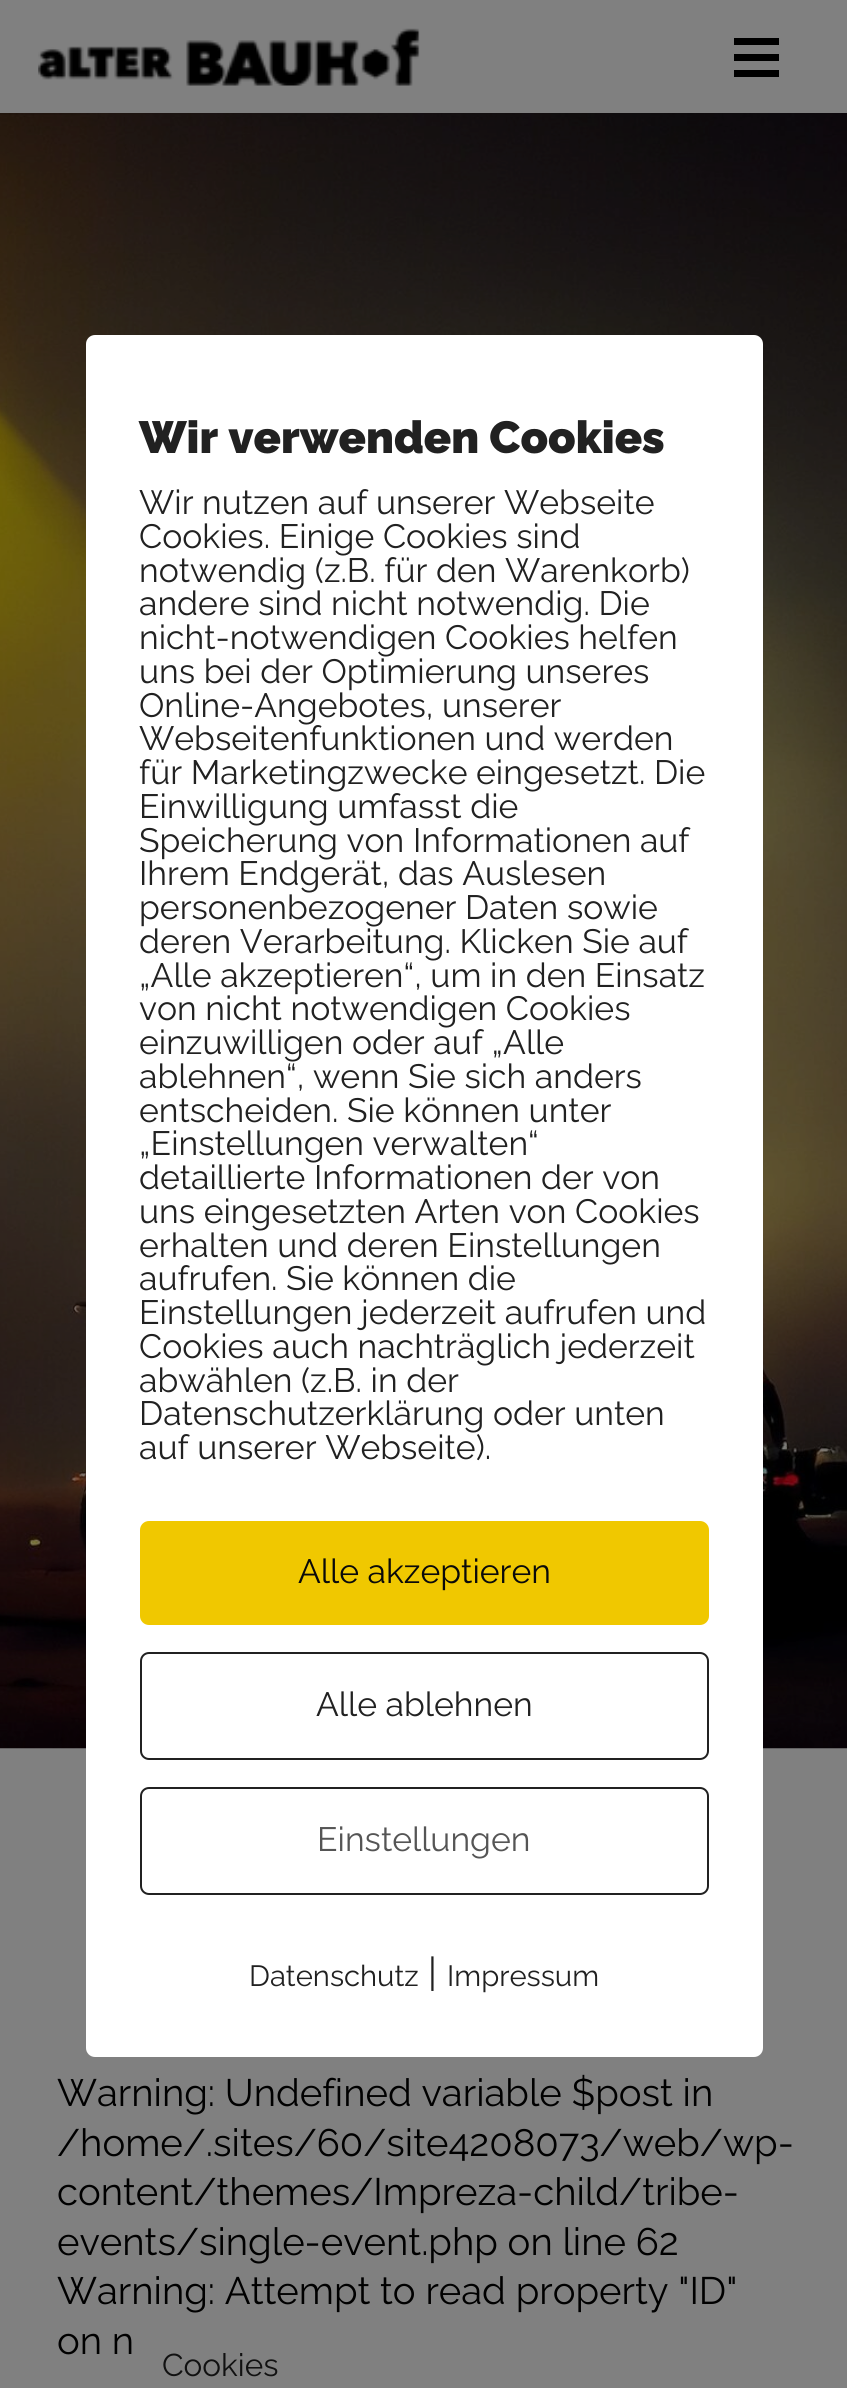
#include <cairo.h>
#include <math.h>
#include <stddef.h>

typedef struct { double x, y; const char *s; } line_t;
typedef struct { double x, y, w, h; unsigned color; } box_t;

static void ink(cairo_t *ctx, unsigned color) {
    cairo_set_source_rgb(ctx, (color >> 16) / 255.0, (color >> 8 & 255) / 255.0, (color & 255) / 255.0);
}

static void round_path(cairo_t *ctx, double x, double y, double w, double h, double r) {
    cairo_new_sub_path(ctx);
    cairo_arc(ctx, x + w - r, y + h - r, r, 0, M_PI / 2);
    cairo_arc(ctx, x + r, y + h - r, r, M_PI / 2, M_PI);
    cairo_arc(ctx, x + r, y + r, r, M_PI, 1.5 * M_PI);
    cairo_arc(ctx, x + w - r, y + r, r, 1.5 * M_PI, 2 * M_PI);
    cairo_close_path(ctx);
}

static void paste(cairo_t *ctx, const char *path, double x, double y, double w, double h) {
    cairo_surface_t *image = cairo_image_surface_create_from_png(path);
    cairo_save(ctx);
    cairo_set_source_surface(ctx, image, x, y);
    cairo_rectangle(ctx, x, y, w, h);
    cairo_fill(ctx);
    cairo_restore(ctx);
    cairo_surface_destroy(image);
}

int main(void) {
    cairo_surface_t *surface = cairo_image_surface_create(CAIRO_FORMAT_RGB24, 847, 2388);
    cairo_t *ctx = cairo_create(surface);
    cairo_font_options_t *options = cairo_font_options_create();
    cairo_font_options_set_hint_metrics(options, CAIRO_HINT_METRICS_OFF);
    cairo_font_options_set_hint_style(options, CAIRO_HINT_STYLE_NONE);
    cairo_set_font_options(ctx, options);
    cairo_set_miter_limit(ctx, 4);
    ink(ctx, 0x808080);
    cairo_paint(ctx);
    paste(ctx, "media/2.png", 0, 113, 847, 1636);
    ink(ctx, 0xFFFFFF);
    round_path(ctx, 86, 335, 677, 1722, 9);
    cairo_fill(ctx);
    cairo_select_font_face(ctx, "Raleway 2 Thin", CAIRO_FONT_SLANT_NORMAL, CAIRO_FONT_WEIGHT_NORMAL);
    cairo_set_font_size(ctx, 45);
    ink(ctx, 0x212121);
    cairo_move_to(ctx, 139, 453);
    cairo_show_text(ctx, "Wir verwenden Cookies");
    cairo_select_font_face(ctx, "Raleway Thin", CAIRO_FONT_SLANT_NORMAL, CAIRO_FONT_WEIGHT_NORMAL);
    cairo_set_font_size(ctx, 33.75);
    {
        static const line_t items[] = {
            {139, 514, "Wir nutzen auf unserer Webseite"},
            {139, 548, "Cookies. Einige Cookies sind"},
            {139, 582, "notwendig (z.B. für den Warenkorb)"},
            {139, 615, "andere sind nicht notwendig. Die"},
            {139, 649, "nicht-notwendigen Cookies helfen"},
            {139, 683, "uns bei der Optimierung unseres"},
            {139, 717, "Online-Angebotes, unserer"},
            {139, 750, "Webseitenfunktionen und werden"},
            {139, 784, "für Marketingzwecke eingesetzt. Die"},
            {139, 818, "Einwilligung umfasst die"},
            {139, 852, "Speicherung von Informationen auf"},
            {139, 885, "Ihrem Endgerät, das Auslesen"},
            {139, 919, "personenbezogener Daten sowie"},
            {139, 953, "deren Verarbeitung. Klicken Sie auf"},
            {139, 987, "„Alle akzeptieren“, um in den Einsatz"},
            {139, 1020, "von nicht notwendigen Cookies"},
            {139, 1054, "einzuwilligen oder auf „Alle"},
            {139, 1088, "ablehnen“, wenn Sie sich anders"},
            {139, 1122, "entscheiden. Sie können unter"},
            {139, 1155, "„Einstellungen verwalten“"},
            {139, 1189, "detaillierte Informationen der von"},
            {139, 1223, "uns eingesetzten Arten von Cookies"},
            {139, 1257, "erhalten und deren Einstellungen"},
            {139, 1290, "aufrufen. Sie können die"},
            {139, 1324, "Einstellungen jederzeit aufrufen und"},
            {139, 1358, "Cookies auch nachträglich jederzeit"},
            {139, 1392, "abwählen (z.B. in der"},
            {139, 1425, "Datenschutzerklärung oder unten"},
            {139, 1459, "auf unserer Webseite)."},
        };
        for (size_t i = 0; i < sizeof items / sizeof *items; i++) {
            cairo_move_to(ctx, items[i].x, items[i].y);
            cairo_show_text(ctx, items[i].s);
        }
    }
    ink(ctx, 0xF0C800);
    round_path(ctx, 140, 1521, 569, 104, 9);
    cairo_fill(ctx);
    ink(ctx, 0x0A0A0A);
    cairo_move_to(ctx, 298, 1583);
    cairo_show_text(ctx, "Alle akzeptieren");
    round_path(ctx, 141, 1653, 567, 106, 8);
    ink(ctx, 0x212121);
    cairo_stroke(ctx);
    cairo_move_to(ctx, 316, 1716);
    cairo_show_text(ctx, "Alle ablehnen");
    round_path(ctx, 141, 1788, 567, 106, 8);
    cairo_stroke(ctx);
    ink(ctx, 0x555555);
    cairo_move_to(ctx, 317, 1851);
    cairo_show_text(ctx, "Einstellungen");
    cairo_set_font_size(ctx, 29.25);
    ink(ctx, 0x212121);
    cairo_move_to(ctx, 249, 1986);
    cairo_show_text(ctx, "Datenschutz");
    cairo_set_font_size(ctx, 38.25);
    cairo_move_to(ctx, 428, 1986);
    cairo_show_text(ctx, "|");
    cairo_set_font_size(ctx, 29.25);
    cairo_move_to(ctx, 447, 1986);
    cairo_show_text(ctx, "Impressum");
    cairo_set_source_rgba(ctx, 0, 0, 0, 0.08);
    cairo_rectangle(ctx, 0, 113, 90, 2);
    cairo_fill(ctx);
    paste(ctx, "media/1.png", 38, 28, 382, 58);
    {
        static const box_t items[] = {
            {734, 54, 45, 7, 0x000000},
            {734, 38, 45, 7, 0x000000},
            {734, 70, 45, 7, 0x000000},
        };
        for (size_t i = 0; i < sizeof items / sizeof *items; i++) {
            ink(ctx, items[i].color);
            cairo_rectangle(ctx, items[i].x, items[i].y, items[i].w, items[i].h);
            cairo_fill(ctx);
        }
    }
    cairo_set_font_size(ctx, 38.25);
    {
        static const line_t items[] = {
            {57, 2106, "Warning: Undefined variable $post in"},
            {57, 2156, "/home/.sites/60/site4208073/web/wp-"},
            {57, 2205, "content/themes/Impreza-child/tribe-"},
            {57, 2255, "events/single-event.php on line 62"},
            {57, 2304, "Warning: Attempt to read property \"ID\""},
            {57, 2354, "on n"},
        };
        for (size_t i = 0; i < sizeof items / sizeof *items; i++) {
            cairo_move_to(ctx, items[i].x, items[i].y);
            cairo_show_text(ctx, items[i].s);
        }
    }
    cairo_set_font_size(ctx, 31.5);
    ink(ctx, 0x111111);
    cairo_move_to(ctx, 162, 2376);
    cairo_show_text(ctx, "Cookies");
    cairo_surface_write_to_png(surface, "image.png");
    cairo_font_options_destroy(options);
    cairo_destroy(ctx);
    cairo_surface_destroy(surface);
    return 0;
}
